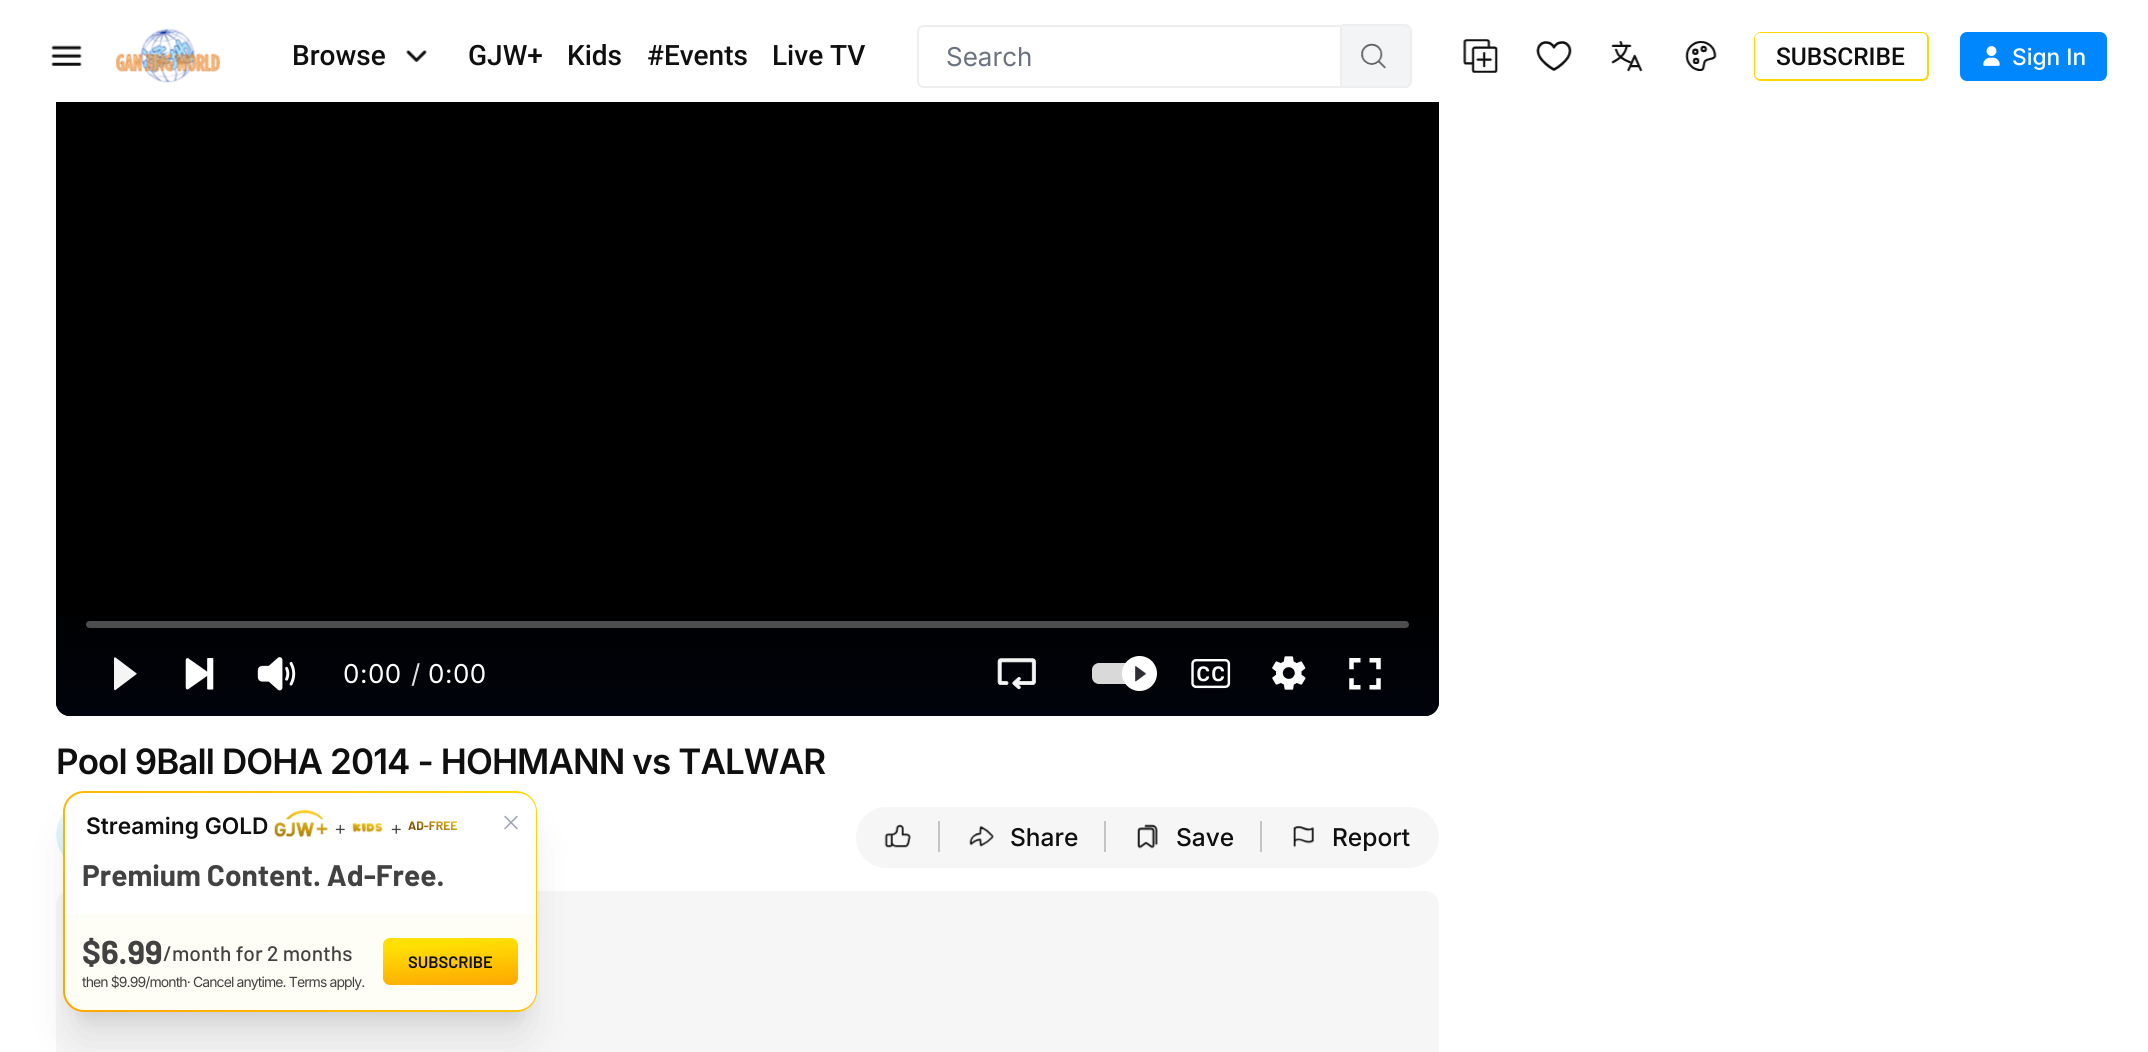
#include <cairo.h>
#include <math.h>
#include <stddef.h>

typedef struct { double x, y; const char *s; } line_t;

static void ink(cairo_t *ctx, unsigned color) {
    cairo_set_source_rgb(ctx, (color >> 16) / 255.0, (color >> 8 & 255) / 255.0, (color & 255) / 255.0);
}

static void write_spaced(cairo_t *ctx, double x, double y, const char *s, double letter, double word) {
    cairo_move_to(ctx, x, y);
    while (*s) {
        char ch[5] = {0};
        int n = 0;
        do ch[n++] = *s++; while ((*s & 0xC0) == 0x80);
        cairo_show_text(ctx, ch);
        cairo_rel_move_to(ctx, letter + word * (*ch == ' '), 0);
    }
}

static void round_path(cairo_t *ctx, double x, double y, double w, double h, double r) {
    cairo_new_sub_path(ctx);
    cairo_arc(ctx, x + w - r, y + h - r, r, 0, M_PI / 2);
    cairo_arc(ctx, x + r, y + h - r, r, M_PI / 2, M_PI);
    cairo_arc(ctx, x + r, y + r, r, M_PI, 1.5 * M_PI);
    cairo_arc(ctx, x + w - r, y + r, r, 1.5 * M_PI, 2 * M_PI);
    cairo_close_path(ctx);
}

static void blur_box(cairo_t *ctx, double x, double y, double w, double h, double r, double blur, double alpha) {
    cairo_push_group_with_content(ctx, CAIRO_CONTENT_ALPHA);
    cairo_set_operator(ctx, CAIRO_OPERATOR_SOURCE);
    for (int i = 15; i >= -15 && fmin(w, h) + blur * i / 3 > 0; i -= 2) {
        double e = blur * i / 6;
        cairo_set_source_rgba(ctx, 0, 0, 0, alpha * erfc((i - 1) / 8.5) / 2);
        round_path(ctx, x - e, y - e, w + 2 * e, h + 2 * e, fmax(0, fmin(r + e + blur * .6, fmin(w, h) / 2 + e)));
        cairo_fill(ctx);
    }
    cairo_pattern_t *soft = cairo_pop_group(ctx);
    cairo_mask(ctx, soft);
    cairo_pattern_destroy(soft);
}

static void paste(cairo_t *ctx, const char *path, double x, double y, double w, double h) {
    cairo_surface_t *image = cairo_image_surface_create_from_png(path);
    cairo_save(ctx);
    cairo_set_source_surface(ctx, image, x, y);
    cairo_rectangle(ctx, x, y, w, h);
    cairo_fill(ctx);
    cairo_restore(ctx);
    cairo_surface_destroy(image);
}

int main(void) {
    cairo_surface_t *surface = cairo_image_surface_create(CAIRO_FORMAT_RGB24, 2148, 1052);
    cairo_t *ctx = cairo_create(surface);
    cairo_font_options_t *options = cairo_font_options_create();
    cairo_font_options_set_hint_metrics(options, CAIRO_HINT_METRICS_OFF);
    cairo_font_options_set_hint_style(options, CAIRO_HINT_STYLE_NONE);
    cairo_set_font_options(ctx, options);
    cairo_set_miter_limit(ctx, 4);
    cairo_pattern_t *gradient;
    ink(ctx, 0xFFFFFF);
    cairo_paint(ctx);
    ink(ctx, 0x000000);
    round_path(ctx, 56, -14, 1383, 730, 14);
    cairo_fill(ctx);
    cairo_set_source_rgba(ctx, 0, 0, 0, 0.99);
    round_path(ctx, 56, -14, 1383, 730, 14);
    cairo_fill(ctx);
    gradient = cairo_pattern_create_linear(747, 716, 747, -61);
    cairo_pattern_add_color_stop_rgba(gradient, 0, 0.004, 0.02, 0.067, 0.72);
    cairo_pattern_add_color_stop_rgba(gradient, 0.15, 0.004, 0.02, 0.067, 0);
    cairo_set_source(ctx, gradient);
    cairo_pattern_destroy(gradient);
    cairo_new_path(ctx);
    cairo_move_to(ctx, 56, -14);
    cairo_line_to(ctx, 1439, -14);
    cairo_line_to(ctx, 1439, 702);
    cairo_curve_to(ctx, 1439, 709.5, 1432.5, 716, 1425, 716);
    cairo_line_to(ctx, 70, 716);
    cairo_curve_to(ctx, 62.5, 716, 56, 709.5, 56, 702);
    cairo_close_path(ctx);
    cairo_fill(ctx);
    ink(ctx, 0xFFFFFF);
    cairo_rectangle(ctx, 56, 0, 1383, 102);
    cairo_fill(ctx);
    paste(ctx, "media/1.png", 51, 45, 31, 21);
    paste(ctx, "media/2.png", 115, 28, 106, 55);
    cairo_select_font_face(ctx, "Roboto Medium", CAIRO_FONT_SLANT_NORMAL, CAIRO_FONT_WEIGHT_NORMAL);
    cairo_set_font_size(ctx, 28);
    ink(ctx, 0x0F0F0F);
    cairo_move_to(ctx, 292, 65);
    cairo_show_text(ctx, "Browse");
    paste(ctx, "media/3.png", 406, 50, 21, 12);
    {
        static const line_t items[] = {
            {468, 65, "GJW+"},
            {567, 65, "Kids"},
            {647, 65, "#Events"},
            {772, 65, "Live TV"},
        };
        for (size_t i = 0; i < sizeof items / sizeof *items; i++) {
            cairo_move_to(ctx, items[i].x, items[i].y);
            cairo_show_text(ctx, items[i].s);
        }
    }
    cairo_new_path(ctx);
    cairo_move_to(ctx, 924, 26);
    cairo_line_to(ctx, 1341, 26);
    cairo_line_to(ctx, 1341, 87);
    cairo_line_to(ctx, 924, 87);
    cairo_curve_to(ctx, 920.5, 87, 918, 84.5, 918, 81);
    cairo_line_to(ctx, 918, 32);
    cairo_curve_to(ctx, 918, 28.5, 920.5, 26, 924, 26);
    cairo_close_path(ctx);
    ink(ctx, 0xEEEEEE);
    cairo_stroke(ctx);
    cairo_select_font_face(ctx, "Inter", CAIRO_FONT_SLANT_NORMAL, CAIRO_FONT_WEIGHT_NORMAL);
    cairo_set_font_size(ctx, 26);
    ink(ctx, 0x6B7280);
    cairo_move_to(ctx, 946, 66);
    cairo_show_text(ctx, "Search");
    ink(ctx, 0xF2F4F6);
    cairo_new_path(ctx);
    cairo_move_to(ctx, 1342, 25);
    cairo_line_to(ctx, 1405, 25);
    cairo_curve_to(ctx, 1409, 25, 1412, 28, 1412, 32);
    cairo_line_to(ctx, 1412, 81);
    cairo_curve_to(ctx, 1412, 85, 1409, 88, 1405, 88);
    cairo_line_to(ctx, 1342, 88);
    cairo_close_path(ctx);
    cairo_fill(ctx);
    ink(ctx, 0xEEEEEE);
    cairo_set_fill_rule(ctx, CAIRO_FILL_RULE_EVEN_ODD);
    cairo_new_path(ctx);
    cairo_move_to(ctx, 1342, 24);
    cairo_line_to(ctx, 1405, 24);
    cairo_curve_to(ctx, 1409, 24, 1412, 28, 1412, 32);
    cairo_line_to(ctx, 1412, 80);
    cairo_curve_to(ctx, 1412, 84, 1409, 88, 1405, 88);
    cairo_line_to(ctx, 1342, 88);
    cairo_close_path(ctx);
    cairo_move_to(ctx, 1342, 26);
    cairo_line_to(ctx, 1405, 26);
    cairo_curve_to(ctx, 1408, 26, 1410, 29, 1410, 32);
    cairo_line_to(ctx, 1410, 80);
    cairo_curve_to(ctx, 1410, 83, 1408, 86, 1405, 86);
    cairo_line_to(ctx, 1342, 86);
    cairo_close_path(ctx);
    cairo_fill(ctx);
    paste(ctx, "media/4.png", 1361, 43, 26, 26);
    paste(ctx, "media/5.png", 1463, 39, 36, 34);
    paste(ctx, "media/6.png", 1536, 41, 36, 30);
    paste(ctx, "media/7.png", 1611, 41, 32, 31);
    paste(ctx, "media/8.png", 1685, 41, 32, 30);
    gradient = cairo_pattern_create_linear(1785, 112, 1897, -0.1);
    cairo_pattern_add_color_stop_rgba(gradient, 0.01, 1, 0.6, 0, 1);
    cairo_pattern_add_color_stop_rgba(gradient, 0.01, 1, 0.839, 0, 1);
    cairo_pattern_add_color_stop_rgba(gradient, 1, 1, 0.839, 0.004, 1);
    cairo_set_source(ctx, gradient);
    cairo_pattern_destroy(gradient);
    round_path(ctx, 1754, 32, 175, 49, 7);
    cairo_fill(ctx);
    ink(ctx, 0xFFFFFF);
    round_path(ctx, 1755, 33, 172, 46, 5);
    cairo_fill(ctx);
    cairo_select_font_face(ctx, "Roboto Medium", CAIRO_FONT_SLANT_NORMAL, CAIRO_FONT_WEIGHT_NORMAL);
    cairo_set_font_size(ctx, 24.5);
    ink(ctx, 0x0F0F0F);
    cairo_move_to(ctx, 1776, 65);
    cairo_show_text(ctx, "SUBSCRIBE");
    ink(ctx, 0x0187FD);
    round_path(ctx, 1960, 32, 147, 49, 7);
    cairo_fill(ctx);
    paste(ctx, "media/9.png", 1983, 46, 17, 20);
    cairo_select_font_face(ctx, "Inter Medium", CAIRO_FONT_SLANT_NORMAL, CAIRO_FONT_WEIGHT_NORMAL);
    cairo_set_font_size(ctx, 22.75);
    ink(ctx, 0xFFFFFF);
    cairo_move_to(ctx, 2012, 65);
    cairo_show_text(ctx, "Sign In");
    ink(ctx, 0x4D4D4E);
    round_path(ctx, 86, 621, 1323, 7, 3.5);
    cairo_fill(ctx);
    ink(ctx, 0xF5F5F5);
    cairo_set_fill_rule(ctx, CAIRO_FILL_RULE_WINDING);
    cairo_new_path(ctx);
    cairo_move_to(ctx, 114, 658.5);
    cairo_curve_to(ctx, 114, 657.5, 115, 657, 115.5, 657.5);
    cairo_line_to(ctx, 136, 673);
    cairo_curve_to(ctx, 137, 673.5, 137, 674, 136, 674.5);
    cairo_line_to(ctx, 115.5, 690);
    cairo_curve_to(ctx, 115, 690.5, 114, 690, 114, 689);
    cairo_close_path(ctx);
    cairo_fill(ctx);
    paste(ctx, "media/10.png", 185, 658, 29, 32);
    paste(ctx, "media/11.png", 257, 657, 39, 34);
    cairo_select_font_face(ctx, "Inter", CAIRO_FONT_SLANT_NORMAL, CAIRO_FONT_WEIGHT_NORMAL);
    cairo_set_font_size(ctx, 26);
    ink(ctx, 0xFFFFFF);
    write_spaced(ctx, 343, 683, "0:00", 0.5, 0);
    ink(ctx, 0xE0E0E0);
    cairo_move_to(ctx, 411, 683);
    cairo_show_text(ctx, "/");
    ink(ctx, 0xFFFFFF);
    write_spaced(ctx, 428, 683, "0:00", 0.5, 0);
    paste(ctx, "media/12.png", 997, 658, 39, 32);
    ink(ctx, 0xD9D9D9);
    round_path(ctx, 1092, 663, 47, 21, 7);
    cairo_fill(ctx);
    ink(ctx, 0xFFFFFF);
    cairo_arc(ctx, 1139.5, 673.5, 17.5, 0, 2 * M_PI);
    cairo_fill(ctx);
    paste(ctx, "media/13.png", 1135, 666, 11, 16);
    paste(ctx, "media/14.png", 1191, 659, 40, 30);
    paste(ctx, "media/15.png", 1272, 656, 34, 34);
    paste(ctx, "media/16.png", 1349, 658, 32, 32);
    cairo_select_font_face(ctx, "Inter SemiBold", CAIRO_FONT_SLANT_NORMAL, CAIRO_FONT_WEIGHT_NORMAL);
    cairo_set_font_size(ctx, 35);
    ink(ctx, 0x0F0F0F);
    write_spaced(ctx, 56, 774, "Pool 9Ball DOHA 2014 - HOHMANN vs TALWAR", -0.9, 0);
    paste(ctx, "media/17.png", 56, 814, 7, 41);
    ink(ctx, 0xF6F6F6);
    cairo_new_path(ctx);
    cairo_move_to(ctx, 886.5, 807);
    cairo_line_to(ctx, 940, 807);
    cairo_line_to(ctx, 940, 868);
    cairo_line_to(ctx, 886.5, 868);
    cairo_curve_to(ctx, 869.5, 868, 856, 854.5, 856, 837.5);
    cairo_curve_to(ctx, 856, 820.5, 869.5, 807, 886.5, 807);
    cairo_close_path(ctx);
    cairo_fill(ctx);
    paste(ctx, "media/18.png", 884, 824, 27, 24);
    ink(ctx, 0xC4C4C4);
    cairo_rectangle(ctx, 938, 821, 2, 31);
    cairo_fill(ctx);
    ink(ctx, 0xF6F6F6);
    cairo_rectangle(ctx, 940, 807, 322, 61);
    cairo_fill(ctx);
    paste(ctx, "media/19.png", 969, 826, 25, 21);
    cairo_select_font_face(ctx, "Inter Medium", CAIRO_FONT_SLANT_NORMAL, CAIRO_FONT_WEIGHT_NORMAL);
    cairo_set_font_size(ctx, 24.5);
    ink(ctx, 0x0F0F0F);
    cairo_move_to(ctx, 1010, 846);
    cairo_show_text(ctx, "Share");
    ink(ctx, 0xC4C4C4);
    cairo_rectangle(ctx, 1104, 821, 2, 31);
    cairo_fill(ctx);
    paste(ctx, "media/20.png", 1137, 824, 21, 25);
    ink(ctx, 0x0F0F0F);
    cairo_move_to(ctx, 1176, 846);
    cairo_show_text(ctx, "Save");
    ink(ctx, 0xC4C4C4);
    cairo_rectangle(ctx, 1260, 821, 2, 31);
    cairo_fill(ctx);
    ink(ctx, 0xF6F6F6);
    cairo_new_path(ctx);
    cairo_move_to(ctx, 1262, 807);
    cairo_line_to(ctx, 1408.5, 807);
    cairo_curve_to(ctx, 1425.5, 807, 1439, 820.5, 1439, 837.5);
    cairo_curve_to(ctx, 1439, 854.5, 1425.5, 868, 1408.5, 868);
    cairo_line_to(ctx, 1262, 868);
    cairo_close_path(ctx);
    cairo_fill(ctx);
    paste(ctx, "media/21.png", 1293, 826, 21, 22);
    ink(ctx, 0x0F0F0F);
    cairo_move_to(ctx, 1332, 846);
    cairo_show_text(ctx, "Report");
    ink(ctx, 0xF6F6F6);
    round_path(ctx, 56, 891, 1383, 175, 14);
    cairo_fill(ctx);
    ink(ctx, 0x000000);
    blur_box(ctx, 74, 816, 453, 199, 11, 9, 0.1);
    blur_box(ctx, 72, 835, 457, 203, 12, 22, 0.1);
    gradient = cairo_pattern_create_linear(497, 670, 146, 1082);
    cairo_pattern_add_color_stop_rgba(gradient, 0, 1, 0.875, 0.016, 1);
    cairo_pattern_add_color_stop_rgba(gradient, 0.97, 0.996, 0.659, 0.012, 1);
    cairo_set_source(ctx, gradient);
    cairo_pattern_destroy(gradient);
    round_path(ctx, 63, 791, 474, 221, 21);
    cairo_fill(ctx);
    ink(ctx, 0xFFFFFF);
    cairo_new_path(ctx);
    cairo_move_to(ctx, 84, 793);
    cairo_line_to(ctx, 517, 793);
    cairo_curve_to(ctx, 527.5, 793, 536, 801.5, 536, 812);
    cairo_line_to(ctx, 536, 844);
    cairo_line_to(ctx, 65, 844);
    cairo_line_to(ctx, 65, 812);
    cairo_curve_to(ctx, 65, 801.5, 73.5, 793, 84, 793);
    cairo_close_path(ctx);
    cairo_fill(ctx);
    cairo_select_font_face(ctx, "Inter SemiBold", CAIRO_FONT_SLANT_NORMAL, CAIRO_FONT_WEIGHT_NORMAL);
    cairo_set_font_size(ctx, 22.75);
    ink(ctx, 0x0F0F0F);
    cairo_move_to(ctx, 86, 834);
    cairo_show_text(ctx, "Streaming GOLD");
    paste(ctx, "media/22.png", 274, 810, 54, 28);
    cairo_select_font_face(ctx, "Barlow", CAIRO_FONT_SLANT_NORMAL, CAIRO_FONT_WEIGHT_NORMAL);
    cairo_set_font_size(ctx, 21);
    ink(ctx, 0x424242);
    cairo_move_to(ctx, 335, 836);
    cairo_show_text(ctx, "+");
    paste(ctx, "media/23.png", 352, 823, 31, 10);
    cairo_move_to(ctx, 391, 836);
    cairo_show_text(ctx, "+");
    cairo_select_font_face(ctx, "Barlow", CAIRO_FONT_SLANT_NORMAL, CAIRO_FONT_WEIGHT_BOLD);
    cairo_set_font_size(ctx, 12.25);
    gradient = cairo_pattern_create_linear(438, 812, 428, 839);
    cairo_pattern_add_color_stop_rgba(gradient, 0, 1, 0.812, 0.129, 1);
    cairo_pattern_add_color_stop_rgba(gradient, 0.78, 0.498, 0.333, 0, 1);
    cairo_set_source(ctx, gradient);
    cairo_pattern_destroy(gradient);
    cairo_move_to(ctx, 408, 830);
    cairo_show_text(ctx, "AD-FREE");
    ink(ctx, 0xFFFFFF);
    cairo_rectangle(ctx, 65, 844, 471, 70);
    cairo_fill(ctx);
    cairo_set_font_size(ctx, 29.75);
    ink(ctx, 0x424242);
    cairo_move_to(ctx, 82, 886);
    cairo_show_text(ctx, "Premium Content. Ad-Free.");
    ink(ctx, 0xFEFDF6);
    cairo_new_path(ctx);
    cairo_move_to(ctx, 65, 914);
    cairo_line_to(ctx, 536, 914);
    cairo_line_to(ctx, 536, 991);
    cairo_curve_to(ctx, 536, 1001.5, 527.5, 1010, 517, 1010);
    cairo_line_to(ctx, 84, 1010);
    cairo_curve_to(ctx, 73.5, 1010, 65, 1001.5, 65, 991);
    cairo_close_path(ctx);
    cairo_fill(ctx);
    cairo_set_font_size(ctx, 33);
    ink(ctx, 0x424242);
    cairo_move_to(ctx, 82, 964);
    cairo_show_text(ctx, "$6.99");
    cairo_select_font_face(ctx, "Barlow Medium", CAIRO_FONT_SLANT_NORMAL, CAIRO_FONT_WEIGHT_NORMAL);
    cairo_set_font_size(ctx, 21);
    cairo_move_to(ctx, 163, 961);
    cairo_show_text(ctx, "/month for 2 months");
    cairo_select_font_face(ctx, "Inter", CAIRO_FONT_SLANT_NORMAL, CAIRO_FONT_WEIGHT_NORMAL);
    cairo_set_font_size(ctx, 14);
    write_spaced(ctx, 82, 987, "then $9.99/month· Cancel anytime. Terms apply.", -0.9, 0);
    gradient = cairo_pattern_create_linear(449, 933, 453, 990);
    cairo_pattern_add_color_stop_rgba(gradient, 0.18, 1, 0.875, 0.016, 1);
    cairo_pattern_add_color_stop_rgba(gradient, 0.96, 0.996, 0.659, 0.012, 1);
    cairo_set_source(ctx, gradient);
    cairo_pattern_destroy(gradient);
    round_path(ctx, 383, 938, 135, 47, 7);
    cairo_fill(ctx);
    cairo_select_font_face(ctx, "Barlow SemiBold", CAIRO_FONT_SLANT_NORMAL, CAIRO_FONT_WEIGHT_NORMAL);
    cairo_set_font_size(ctx, 16.5);
    ink(ctx, 0x0F0F0F);
    cairo_move_to(ctx, 408, 968);
    cairo_show_text(ctx, "SUBSCRIBE");
    cairo_new_path(ctx);
    cairo_move_to(ctx, 505, 828.5);
    cairo_line_to(ctx, 517, 816.5);
    cairo_move_to(ctx, 505, 816.5);
    cairo_line_to(ctx, 517, 828.5);
    ink(ctx, 0x9CA3AF);
    cairo_set_line_width(ctx, 1.5);
    cairo_set_line_cap(ctx, CAIRO_LINE_CAP_ROUND);
    cairo_set_line_join(ctx, CAIRO_LINE_JOIN_ROUND);
    cairo_stroke(ctx);
    cairo_surface_write_to_png(surface, "image.png");
    cairo_font_options_destroy(options);
    cairo_destroy(ctx);
    cairo_surface_destroy(surface);
    return 0;
}
